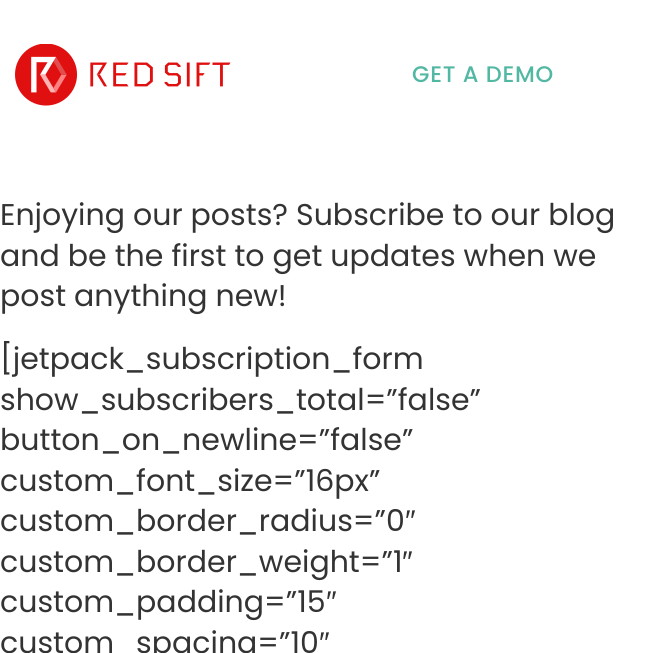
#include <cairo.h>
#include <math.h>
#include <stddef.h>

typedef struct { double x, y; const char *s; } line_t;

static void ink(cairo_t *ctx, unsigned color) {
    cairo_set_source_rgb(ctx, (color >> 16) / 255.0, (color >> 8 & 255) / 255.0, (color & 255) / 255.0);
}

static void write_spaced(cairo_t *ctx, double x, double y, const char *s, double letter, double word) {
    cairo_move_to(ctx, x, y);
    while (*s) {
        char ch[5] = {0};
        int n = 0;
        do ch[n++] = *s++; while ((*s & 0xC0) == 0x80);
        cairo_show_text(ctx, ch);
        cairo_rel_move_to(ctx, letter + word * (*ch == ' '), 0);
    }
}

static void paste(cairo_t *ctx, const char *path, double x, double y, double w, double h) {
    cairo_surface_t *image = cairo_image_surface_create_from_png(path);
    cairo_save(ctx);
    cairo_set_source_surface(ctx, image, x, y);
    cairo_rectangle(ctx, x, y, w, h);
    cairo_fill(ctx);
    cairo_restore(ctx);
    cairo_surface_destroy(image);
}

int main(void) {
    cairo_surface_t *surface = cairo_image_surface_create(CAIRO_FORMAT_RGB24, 658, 653);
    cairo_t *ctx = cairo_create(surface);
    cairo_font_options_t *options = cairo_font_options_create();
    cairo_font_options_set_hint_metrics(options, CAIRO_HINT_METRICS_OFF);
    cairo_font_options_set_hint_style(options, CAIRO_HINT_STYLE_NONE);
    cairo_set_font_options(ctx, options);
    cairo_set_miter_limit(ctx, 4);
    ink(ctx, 0xFFFFFF);
    cairo_paint(ctx);
    paste(ctx, "media/1.png", 15, 44, 216, 62);
    cairo_select_font_face(ctx, "Poppins Medium", CAIRO_FONT_SLANT_NORMAL, CAIRO_FONT_WEIGHT_NORMAL);
    cairo_set_font_size(ctx, 22.5);
    ink(ctx, 0x52B7A3);
    write_spaced(ctx, 412, 82, "GET A DEMO", 0.75, 0);
    cairo_select_font_face(ctx, "Poppins", CAIRO_FONT_SLANT_NORMAL, CAIRO_FONT_WEIGHT_NORMAL);
    cairo_set_font_size(ctx, 30);
    ink(ctx, 0x333333);
    {
        static const line_t items[] = {
            {0, 225, "Enjoying our posts? Subscribe to our blog"},
            {0, 266, "and be the first to get updates when we"},
            {0, 306, "post anything new!"},
            {0, 369, "[jetpack_subscription_form"},
            {0, 410, "show_subscribers_total=”false”"},
            {0, 450, "button_on_newline=”false”"},
            {0, 491, "custom_font_size=”16px”"},
            {0, 531, "custom_border_radius=”0"},
        };
        for (size_t i = 0; i < sizeof items / sizeof *items; i++) {
            cairo_move_to(ctx, items[i].x, items[i].y);
            cairo_show_text(ctx, items[i].s);
        }
    }
    cairo_select_font_face(ctx, "Liberation Sans", CAIRO_FONT_SLANT_NORMAL, CAIRO_FONT_WEIGHT_NORMAL);
    cairo_move_to(ctx, 405, 531);
    cairo_show_text(ctx, "″");
    cairo_select_font_face(ctx, "Poppins", CAIRO_FONT_SLANT_NORMAL, CAIRO_FONT_WEIGHT_NORMAL);
    cairo_move_to(ctx, 0, 572);
    cairo_show_text(ctx, "custom_border_weight=”1");
    cairo_select_font_face(ctx, "Liberation Sans", CAIRO_FONT_SLANT_NORMAL, CAIRO_FONT_WEIGHT_NORMAL);
    cairo_move_to(ctx, 402, 572);
    cairo_show_text(ctx, "″");
    cairo_select_font_face(ctx, "Poppins", CAIRO_FONT_SLANT_NORMAL, CAIRO_FONT_WEIGHT_NORMAL);
    cairo_move_to(ctx, 0, 612);
    cairo_show_text(ctx, "custom_padding=”15");
    cairo_select_font_face(ctx, "Liberation Sans", CAIRO_FONT_SLANT_NORMAL, CAIRO_FONT_WEIGHT_NORMAL);
    cairo_move_to(ctx, 326, 612);
    cairo_show_text(ctx, "″");
    cairo_select_font_face(ctx, "Poppins", CAIRO_FONT_SLANT_NORMAL, CAIRO_FONT_WEIGHT_NORMAL);
    cairo_move_to(ctx, 0, 653);
    cairo_show_text(ctx, "custom_spacing=”10");
    cairo_select_font_face(ctx, "Liberation Sans", CAIRO_FONT_SLANT_NORMAL, CAIRO_FONT_WEIGHT_NORMAL);
    cairo_move_to(ctx, 319, 653);
    cairo_show_text(ctx, "″");
    cairo_surface_write_to_png(surface, "image.png");
    cairo_font_options_destroy(options);
    cairo_destroy(ctx);
    cairo_surface_destroy(surface);
    return 0;
}
